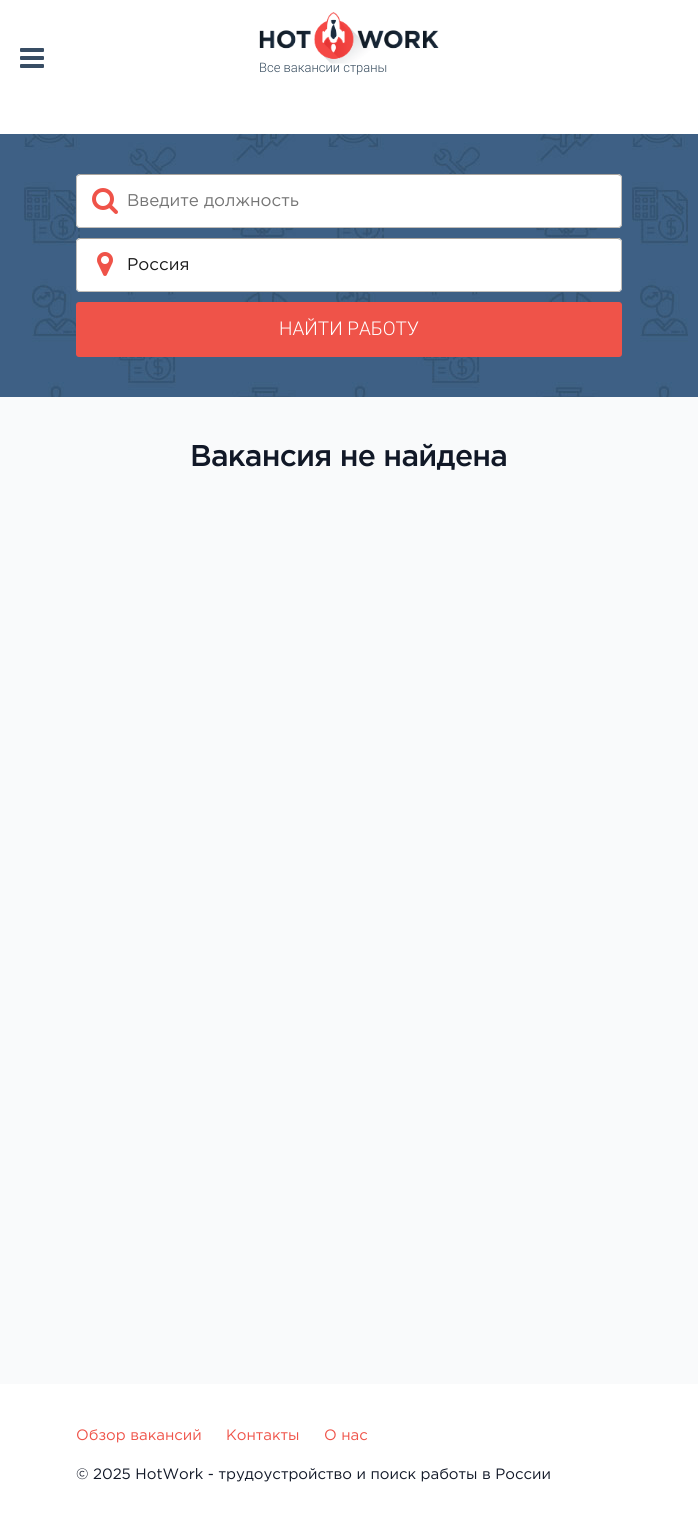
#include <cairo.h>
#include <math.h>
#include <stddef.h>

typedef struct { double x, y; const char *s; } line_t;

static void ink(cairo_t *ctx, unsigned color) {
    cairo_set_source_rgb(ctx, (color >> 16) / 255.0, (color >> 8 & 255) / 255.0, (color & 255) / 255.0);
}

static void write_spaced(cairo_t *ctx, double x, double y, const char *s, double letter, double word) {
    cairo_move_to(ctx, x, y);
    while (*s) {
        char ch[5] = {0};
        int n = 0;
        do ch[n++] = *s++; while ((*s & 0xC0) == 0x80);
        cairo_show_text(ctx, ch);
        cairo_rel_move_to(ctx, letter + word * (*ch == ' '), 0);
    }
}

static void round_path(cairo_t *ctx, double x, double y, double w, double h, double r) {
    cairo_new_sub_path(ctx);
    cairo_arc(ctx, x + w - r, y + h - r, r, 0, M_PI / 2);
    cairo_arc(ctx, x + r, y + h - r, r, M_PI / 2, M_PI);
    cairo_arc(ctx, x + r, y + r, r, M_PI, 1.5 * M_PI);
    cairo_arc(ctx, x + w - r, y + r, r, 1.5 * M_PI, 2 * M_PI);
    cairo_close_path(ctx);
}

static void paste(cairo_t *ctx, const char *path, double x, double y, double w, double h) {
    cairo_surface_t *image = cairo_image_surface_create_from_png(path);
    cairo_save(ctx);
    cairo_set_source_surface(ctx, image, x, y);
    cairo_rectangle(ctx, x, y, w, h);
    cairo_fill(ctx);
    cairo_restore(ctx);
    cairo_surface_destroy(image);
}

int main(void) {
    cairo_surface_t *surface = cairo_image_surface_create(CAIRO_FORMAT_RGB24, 698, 1525);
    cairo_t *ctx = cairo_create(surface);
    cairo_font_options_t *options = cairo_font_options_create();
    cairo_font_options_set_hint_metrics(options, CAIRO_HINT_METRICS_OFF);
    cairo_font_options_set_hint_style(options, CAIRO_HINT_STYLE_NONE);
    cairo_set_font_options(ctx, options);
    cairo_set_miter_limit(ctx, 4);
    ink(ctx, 0xFFFFFF);
    cairo_paint(ctx);
    paste(ctx, "media/1.png", 20, 48, 24, 20);
    paste(ctx, "media/2.png", 259, 12, 180, 52);
    cairo_select_font_face(ctx, "Roboto Light", CAIRO_FONT_SLANT_NORMAL, CAIRO_FONT_WEIGHT_NORMAL);
    cairo_set_font_size(ctx, 13);
    ink(ctx, 0x374C5E);
    cairo_move_to(ctx, 259, 72);
    cairo_show_text(ctx, "Все вакансии страны");
    paste(ctx, "media/3.png", 0, 134, 698, 263);
    ink(ctx, 0xFFFFFF);
    round_path(ctx, 76, 174, 546, 54, 4);
    cairo_fill(ctx);
    cairo_new_path(ctx);
    cairo_move_to(ctx, 77.5, 175.5);
    cairo_line_to(ctx, 80, 174.5);
    cairo_line_to(ctx, 618, 174.5);
    cairo_line_to(ctx, 620.5, 175.5);
    ink(ctx, 0xA9A49D);
    cairo_set_line_width(ctx, 1);
    cairo_stroke(ctx);
    cairo_new_path(ctx);
    cairo_move_to(ctx, 620.5, 175.5);
    cairo_curve_to(ctx, 621, 176, 621.5, 177, 621.5, 178);
    cairo_line_to(ctx, 621.5, 224);
    cairo_curve_to(ctx, 621.5, 225, 621, 226, 620.5, 226.5);
    cairo_curve_to(ctx, 620, 227, 619, 227.5, 618, 227.5);
    cairo_line_to(ctx, 80, 227.5);
    cairo_curve_to(ctx, 79, 227.5, 78, 227, 77.5, 226.5);
    cairo_curve_to(ctx, 77, 226, 76.5, 225, 76.5, 224);
    cairo_line_to(ctx, 76.5, 178);
    cairo_curve_to(ctx, 76.5, 177, 77, 176, 77.5, 175.5);
    ink(ctx, 0xC1BDB8);
    cairo_stroke(ctx);
    paste(ctx, "media/4.png", 92, 188, 26, 26);
    cairo_select_font_face(ctx, "Gotham", CAIRO_FONT_SLANT_NORMAL, CAIRO_FONT_WEIGHT_NORMAL);
    cairo_set_font_size(ctx, 17);
    ink(ctx, 0x757575);
    cairo_move_to(ctx, 127, 206);
    cairo_show_text(ctx, "Введите должность");
    ink(ctx, 0xFFFFFF);
    round_path(ctx, 76, 238, 546, 54, 4);
    cairo_fill(ctx);
    cairo_new_path(ctx);
    cairo_move_to(ctx, 77.5, 239.5);
    cairo_line_to(ctx, 80, 238.5);
    cairo_line_to(ctx, 618, 238.5);
    cairo_line_to(ctx, 620.5, 239.5);
    ink(ctx, 0xA9A49D);
    cairo_stroke(ctx);
    cairo_new_path(ctx);
    cairo_move_to(ctx, 620.5, 239.5);
    cairo_curve_to(ctx, 621, 240, 621.5, 241, 621.5, 242);
    cairo_line_to(ctx, 621.5, 288);
    cairo_curve_to(ctx, 621.5, 289, 621, 290, 620.5, 290.5);
    cairo_curve_to(ctx, 620, 291, 619, 291.5, 618, 291.5);
    cairo_line_to(ctx, 80, 291.5);
    cairo_curve_to(ctx, 79, 291.5, 78, 291, 77.5, 290.5);
    cairo_curve_to(ctx, 77, 290, 76.5, 289, 76.5, 288);
    cairo_line_to(ctx, 76.5, 242);
    cairo_curve_to(ctx, 76.5, 241, 77, 240, 77.5, 239.5);
    ink(ctx, 0xC1BDB8);
    cairo_stroke(ctx);
    paste(ctx, "media/5.png", 97, 252, 16, 24);
    ink(ctx, 0x1A1A1A);
    cairo_move_to(ctx, 127, 270);
    cairo_show_text(ctx, "Россия");
    ink(ctx, 0xEF5349);
    round_path(ctx, 76, 302, 546, 55, 3);
    cairo_fill(ctx);
    cairo_select_font_face(ctx, "Roboto Light", CAIRO_FONT_SLANT_NORMAL, CAIRO_FONT_WEIGHT_NORMAL);
    cairo_set_font_size(ctx, 19);
    ink(ctx, 0xFFFFFF);
    cairo_move_to(ctx, 279, 335);
    cairo_show_text(ctx, "НАЙТИ РАБОТУ");
    ink(ctx, 0xF9FAFB);
    cairo_rectangle(ctx, 0, 397, 698, 987);
    cairo_fill(ctx);
    cairo_select_font_face(ctx, "Gotham Medium", CAIRO_FONT_SLANT_NORMAL, CAIRO_FONT_WEIGHT_NORMAL);
    cairo_set_font_size(ctx, 30);
    ink(ctx, 0x111827);
    write_spaced(ctx, 190, 466, "Вакансия не найдена", -0.75, 0);
    cairo_select_font_face(ctx, "Gotham", CAIRO_FONT_SLANT_NORMAL, CAIRO_FONT_WEIGHT_NORMAL);
    cairo_set_font_size(ctx, 15);
    ink(ctx, 0xEF5349);
    {
        static const line_t items[] = {
            {76, 1440, "Обзор вакансий"},
            {226, 1440, "Контакты"},
            {324, 1440, "О нас"},
        };
        for (size_t i = 0; i < sizeof items / sizeof *items; i++) {
            cairo_move_to(ctx, items[i].x, items[i].y);
            cairo_show_text(ctx, items[i].s);
        }
    }
    ink(ctx, 0x111827);
    cairo_move_to(ctx, 76, 1479);
    cairo_show_text(ctx, "© 2025 HotWork - трудоустройство и поиск работы в России");
    cairo_surface_write_to_png(surface, "image.png");
    cairo_font_options_destroy(options);
    cairo_destroy(ctx);
    cairo_surface_destroy(surface);
    return 0;
}
